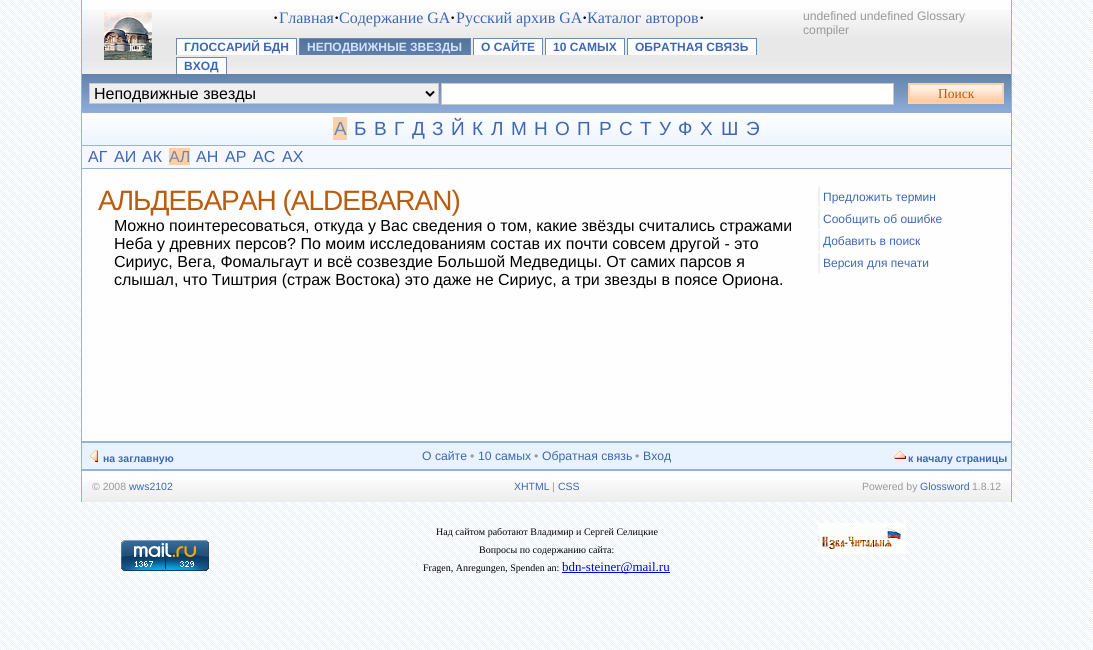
#include <cairo.h>
#include <math.h>
#include <stddef.h>

typedef struct { double x, y; const char *s; } line_t;
typedef struct { double x, y, w, h; unsigned color; } box_t;

static void ink(cairo_t *ctx, unsigned color) {
    cairo_set_source_rgb(ctx, (color >> 16) / 255.0, (color >> 8 & 255) / 255.0, (color & 255) / 255.0);
}

static void write_spaced(cairo_t *ctx, double x, double y, const char *s, double letter, double word) {
    cairo_move_to(ctx, x, y);
    while (*s) {
        char ch[5] = {0};
        int n = 0;
        do ch[n++] = *s++; while ((*s & 0xC0) == 0x80);
        cairo_show_text(ctx, ch);
        cairo_rel_move_to(ctx, letter + word * (*ch == ' '), 0);
    }
}

static void paste(cairo_t *ctx, const char *path, double x, double y, double w, double h) {
    cairo_surface_t *image = cairo_image_surface_create_from_png(path);
    cairo_save(ctx);
    cairo_set_source_surface(ctx, image, x, y);
    cairo_rectangle(ctx, x, y, w, h);
    cairo_fill(ctx);
    cairo_restore(ctx);
    cairo_surface_destroy(image);
}

int main(void) {
    cairo_surface_t *surface = cairo_image_surface_create(CAIRO_FORMAT_RGB24, 1093, 650);
    cairo_t *ctx = cairo_create(surface);
    cairo_font_options_t *options = cairo_font_options_create();
    cairo_font_options_set_hint_metrics(options, CAIRO_HINT_METRICS_OFF);
    cairo_font_options_set_hint_style(options, CAIRO_HINT_STYLE_NONE);
    cairo_set_font_options(ctx, options);
    cairo_set_miter_limit(ctx, 4);
    ink(ctx, 0xFFFFFF);
    cairo_paint(ctx);
    paste(ctx, "media/1.png", 0, 0, 1093, 650);
    {
        static const box_t items[] = {
            {1011, 0, 1, 502, 0x94B3DC},
            {81, 0, 1, 502, 0x94B3DC},
            {82, 0, 929, 9, 0xFEFEFF},
        };
        for (size_t i = 0; i < sizeof items / sizeof *items; i++) {
            ink(ctx, items[i].color);
            cairo_rectangle(ctx, items[i].x, items[i].y, items[i].w, items[i].h);
            cairo_fill(ctx);
        }
    }
    paste(ctx, "media/2.png", 82, 9, 929, 65);
    paste(ctx, "media/3.png", 104, 12, 48, 48);
    cairo_select_font_face(ctx, "Liberation Serif", CAIRO_FONT_SLANT_NORMAL, CAIRO_FONT_WEIGHT_BOLD);
    cairo_set_font_size(ctx, 16);
    ink(ctx, 0x000000);
    cairo_move_to(ctx, 273, 23);
    cairo_show_text(ctx, "·");
    cairo_select_font_face(ctx, "Liberation Serif", CAIRO_FONT_SLANT_NORMAL, CAIRO_FONT_WEIGHT_NORMAL);
    ink(ctx, 0x3E67B3);
    cairo_move_to(ctx, 279, 23);
    cairo_show_text(ctx, "Главная");
    cairo_select_font_face(ctx, "Liberation Serif", CAIRO_FONT_SLANT_NORMAL, CAIRO_FONT_WEIGHT_BOLD);
    ink(ctx, 0x000000);
    cairo_move_to(ctx, 334, 23);
    cairo_show_text(ctx, "·");
    cairo_select_font_face(ctx, "Liberation Serif", CAIRO_FONT_SLANT_NORMAL, CAIRO_FONT_WEIGHT_NORMAL);
    ink(ctx, 0x3E67B3);
    cairo_move_to(ctx, 339, 23);
    cairo_show_text(ctx, "Содержание GA");
    cairo_select_font_face(ctx, "Liberation Serif", CAIRO_FONT_SLANT_NORMAL, CAIRO_FONT_WEIGHT_BOLD);
    ink(ctx, 0x000000);
    cairo_move_to(ctx, 450, 23);
    cairo_show_text(ctx, "·");
    cairo_select_font_face(ctx, "Liberation Serif", CAIRO_FONT_SLANT_NORMAL, CAIRO_FONT_WEIGHT_NORMAL);
    ink(ctx, 0x3E67B3);
    cairo_move_to(ctx, 456, 23);
    cairo_show_text(ctx, "Русский архив GA");
    cairo_select_font_face(ctx, "Liberation Serif", CAIRO_FONT_SLANT_NORMAL, CAIRO_FONT_WEIGHT_BOLD);
    ink(ctx, 0x000000);
    cairo_move_to(ctx, 582, 23);
    cairo_show_text(ctx, "·");
    cairo_select_font_face(ctx, "Liberation Serif", CAIRO_FONT_SLANT_NORMAL, CAIRO_FONT_WEIGHT_NORMAL);
    ink(ctx, 0x3E67B3);
    cairo_move_to(ctx, 587, 23);
    cairo_show_text(ctx, "Каталог авторов");
    cairo_select_font_face(ctx, "Liberation Serif", CAIRO_FONT_SLANT_NORMAL, CAIRO_FONT_WEIGHT_BOLD);
    ink(ctx, 0x000000);
    cairo_move_to(ctx, 699, 23);
    cairo_show_text(ctx, "·");
    cairo_select_font_face(ctx, "Liberation Sans", CAIRO_FONT_SLANT_NORMAL, CAIRO_FONT_WEIGHT_NORMAL);
    cairo_set_font_size(ctx, 12.2);
    ink(ctx, 0x999999);
    cairo_move_to(ctx, 803, 20);
    cairo_show_text(ctx, "undefined undefined Glossary");
    cairo_move_to(ctx, 803, 34);
    cairo_show_text(ctx, "compiler");
    {
        static const box_t items[] = {
            {177, 39, 119, 16, 0xFEFEFF},
            {176, 38, 121, 1, 0x6B8AB3},
            {296, 38, 1, 17, 0x6B8AB3},
            {176, 38, 1, 17, 0x6B8AB3},
        };
        for (size_t i = 0; i < sizeof items / sizeof *items; i++) {
            ink(ctx, items[i].color);
            cairo_rectangle(ctx, items[i].x, items[i].y, items[i].w, items[i].h);
            cairo_fill(ctx);
        }
    }
    cairo_select_font_face(ctx, "Liberation Sans", CAIRO_FONT_SLANT_NORMAL, CAIRO_FONT_WEIGHT_BOLD);
    cairo_set_font_size(ctx, 12);
    ink(ctx, 0x3E67B3);
    cairo_move_to(ctx, 184, 51);
    cairo_show_text(ctx, "ГЛОССАРИЙ БДН");
    paste(ctx, "media/4.png", 300, 39, 170, 16);
    {
        static const box_t items[] = {
            {299, 38, 172, 1, 0x6B8AB3},
            {470, 38, 1, 17, 0x6B8AB3},
            {299, 38, 1, 17, 0x6B8AB3},
        };
        for (size_t i = 0; i < sizeof items / sizeof *items; i++) {
            ink(ctx, items[i].color);
            cairo_rectangle(ctx, items[i].x, items[i].y, items[i].w, items[i].h);
            cairo_fill(ctx);
        }
    }
    ink(ctx, 0xD1E4FF);
    cairo_move_to(ctx, 307, 51);
    cairo_show_text(ctx, "НЕПОДВИЖНЫЕ ЗВЕЗДЫ");
    {
        static const box_t items[] = {
            {474, 39, 68, 16, 0xFEFEFF},
            {473, 38, 70, 1, 0x6B8AB3},
            {542, 38, 1, 17, 0x6B8AB3},
            {473, 38, 1, 17, 0x6B8AB3},
        };
        for (size_t i = 0; i < sizeof items / sizeof *items; i++) {
            ink(ctx, items[i].color);
            cairo_rectangle(ctx, items[i].x, items[i].y, items[i].w, items[i].h);
            cairo_fill(ctx);
        }
    }
    ink(ctx, 0x3E67B3);
    cairo_move_to(ctx, 481, 51);
    cairo_show_text(ctx, "О САЙТЕ");
    {
        static const box_t items[] = {
            {546, 39, 78, 16, 0xFEFEFF},
            {545, 38, 80, 1, 0x6B8AB3},
            {624, 38, 1, 17, 0x6B8AB3},
            {545, 38, 1, 17, 0x6B8AB3},
        };
        for (size_t i = 0; i < sizeof items / sizeof *items; i++) {
            ink(ctx, items[i].color);
            cairo_rectangle(ctx, items[i].x, items[i].y, items[i].w, items[i].h);
            cairo_fill(ctx);
        }
    }
    ink(ctx, 0x3E67B3);
    cairo_move_to(ctx, 553, 51);
    cairo_show_text(ctx, "10 САМЫХ");
    {
        static const box_t items[] = {
            {628, 39, 128, 16, 0xFEFEFF},
            {627, 38, 130, 1, 0x6B8AB3},
            {756, 38, 1, 17, 0x6B8AB3},
            {627, 38, 1, 17, 0x6B8AB3},
        };
        for (size_t i = 0; i < sizeof items / sizeof *items; i++) {
            ink(ctx, items[i].color);
            cairo_rectangle(ctx, items[i].x, items[i].y, items[i].w, items[i].h);
            cairo_fill(ctx);
        }
    }
    ink(ctx, 0x3E67B3);
    cairo_move_to(ctx, 635, 51);
    cairo_show_text(ctx, "ОБРАТНАЯ СВЯЗЬ");
    {
        static const box_t items[] = {
            {177, 58, 49, 16, 0xFEFEFF},
            {176, 57, 51, 1, 0x6B8AB3},
            {226, 57, 1, 17, 0x6B8AB3},
            {176, 57, 1, 17, 0x6B8AB3},
        };
        for (size_t i = 0; i < sizeof items / sizeof *items; i++) {
            ink(ctx, items[i].color);
            cairo_rectangle(ctx, items[i].x, items[i].y, items[i].w, items[i].h);
            cairo_fill(ctx);
        }
    }
    ink(ctx, 0x3E67B3);
    cairo_move_to(ctx, 184, 70);
    cairo_show_text(ctx, "ВХОД");
    paste(ctx, "media/5.png", 82, 74, 929, 39);
    ink(ctx, 0xEFEFEF);
    cairo_rectangle(ctx, 89.5, 83.5, 349, 20);
    cairo_fill_preserve(ctx);
    ink(ctx, 0xC8C8C8);
    cairo_set_line_width(ctx, 1);
    cairo_stroke(ctx);
    cairo_new_path(ctx);
    cairo_move_to(ctx, 426, 91.5);
    cairo_line_to(ctx, 430, 95.5);
    cairo_line_to(ctx, 434, 91.5);
    ink(ctx, 0x000000);
    cairo_set_line_width(ctx, 2);
    cairo_stroke(ctx);
    cairo_select_font_face(ctx, "Liberation Sans", CAIRO_FONT_SLANT_NORMAL, CAIRO_FONT_WEIGHT_NORMAL);
    cairo_set_font_size(ctx, 16);
    cairo_move_to(ctx, 94, 99);
    cairo_show_text(ctx, "Неподвижные звезды");
    ink(ctx, 0xFFFFFF);
    cairo_rectangle(ctx, 441.5, 83.5, 452, 21);
    cairo_fill_preserve(ctx);
    ink(ctx, 0xC8C8C8);
    cairo_set_line_width(ctx, 1);
    cairo_stroke(ctx);
    paste(ctx, "media/6.png", 910, 85, 92, 17);
    cairo_rectangle(ctx, 909, 84, 94, 19);
    ink(ctx, 0xFFD0A7);
    cairo_set_line_width(ctx, 2);
    cairo_stroke(ctx);
    cairo_select_font_face(ctx, "Liberation Serif", CAIRO_FONT_SLANT_NORMAL, CAIRO_FONT_WEIGHT_NORMAL);
    cairo_set_font_size(ctx, 13.5);
    ink(ctx, 0xB95C0C);
    cairo_move_to(ctx, 938, 98);
    cairo_show_text(ctx, "Поиск");
    ink(ctx, 0xFEFEFE);
    cairo_rectangle(ctx, 82, 113, 929, 6);
    cairo_fill(ctx);
    paste(ctx, "media/7.png", 82, 119, 929, 26);
    ink(ctx, 0x94B3DC);
    cairo_rectangle(ctx, 82, 145, 929, 1);
    cairo_fill(ctx);
    ink(ctx, 0xFFD0A7);
    cairo_rectangle(ctx, 333, 117, 14, 23);
    cairo_fill(ctx);
    cairo_select_font_face(ctx, "Liberation Sans", CAIRO_FONT_SLANT_NORMAL, CAIRO_FONT_WEIGHT_NORMAL);
    cairo_set_font_size(ctx, 19);
    ink(ctx, 0x6B8AB3);
    cairo_move_to(ctx, 334, 135);
    cairo_show_text(ctx, "А");
    ink(ctx, 0x3E67B3);
    {
        static const line_t items[] = {
            {354, 135, "Б"},
            {374, 135, "В"},
            {394, 135, "Г"},
            {412, 135, "Д"},
            {432, 135, "З"},
            {451, 135, "Й"},
            {472, 135, "К"},
            {491, 135, "Л"},
            {511, 135, "М"},
            {534, 135, "Н"},
            {555, 135, "О"},
            {577, 135, "П"},
            {599, 135, "Р"},
            {619, 135, "С"},
            {640, 135, "Т"},
            {659, 135, "У"},
            {678, 135, "Ф"},
            {700, 135, "Х"},
            {721, 135, "Ш"},
            {746, 135, "Э"},
        };
        for (size_t i = 0; i < sizeof items / sizeof *items; i++) {
            cairo_move_to(ctx, items[i].x, items[i].y);
            cairo_show_text(ctx, items[i].s);
        }
    }
    ink(ctx, 0xF5F9FF);
    cairo_rectangle(ctx, 82, 146, 929, 22);
    cairo_fill(ctx);
    ink(ctx, 0x94B3DC);
    cairo_rectangle(ctx, 82, 168, 929, 1);
    cairo_fill(ctx);
    cairo_set_font_size(ctx, 16);
    ink(ctx, 0x3E67B3);
    {
        static const line_t items[] = {
            {88, 162, "АГ"},
            {114, 162, "АИ"},
            {142, 162, "АК"},
        };
        for (size_t i = 0; i < sizeof items / sizeof *items; i++) {
            cairo_move_to(ctx, items[i].x, items[i].y);
            cairo_show_text(ctx, items[i].s);
        }
    }
    ink(ctx, 0xFFD0A7);
    cairo_rectangle(ctx, 169, 148, 21, 17);
    cairo_fill(ctx);
    ink(ctx, 0x6B8AB3);
    cairo_move_to(ctx, 169, 162);
    cairo_show_text(ctx, "АЛ");
    ink(ctx, 0x3E67B3);
    {
        static const line_t items[] = {
            {196, 162, "АН"},
            {225, 162, "АР"},
            {253, 162, "АС"},
            {282, 162, "АХ"},
        };
        for (size_t i = 0; i < sizeof items / sizeof *items; i++) {
            cairo_move_to(ctx, items[i].x, items[i].y);
            cairo_show_text(ctx, items[i].s);
        }
    }
    ink(ctx, 0xFEFEFF);
    cairo_rectangle(ctx, 82, 169, 929, 272);
    cairo_fill(ctx);
    cairo_set_font_size(ctx, 28);
    ink(ctx, 0xB95C0C);
    write_spaced(ctx, 98, 210, "АЛЬДЕБАРАН (ALDEBARAN)", -1, 0);
    ink(ctx, 0xEBF2F7);
    cairo_rectangle(ctx, 818, 187, 2, 20);
    cairo_fill(ctx);
    cairo_set_font_size(ctx, 12);
    ink(ctx, 0x3E67B3);
    cairo_move_to(ctx, 823, 201);
    cairo_show_text(ctx, "Предложить термин");
    ink(ctx, 0xEBF2F7);
    cairo_rectangle(ctx, 818, 209, 2, 20);
    cairo_fill(ctx);
    ink(ctx, 0x3E67B3);
    cairo_move_to(ctx, 823, 223);
    cairo_show_text(ctx, "Сообщить об ошибке");
    ink(ctx, 0xEBF2F7);
    cairo_rectangle(ctx, 818, 231, 2, 20);
    cairo_fill(ctx);
    ink(ctx, 0x3E67B3);
    cairo_move_to(ctx, 823, 245);
    cairo_show_text(ctx, "Добавить в поиск");
    ink(ctx, 0xEBF2F7);
    cairo_rectangle(ctx, 818, 253, 2, 20);
    cairo_fill(ctx);
    ink(ctx, 0x3E67B3);
    cairo_move_to(ctx, 823, 267);
    cairo_show_text(ctx, "Версия для печати");
    cairo_set_font_size(ctx, 16);
    ink(ctx, 0x000000);
    {
        static const line_t items[] = {
            {114, 231, "Можно поинтересоваться, откуда у Вас сведения о том, какие звёзды считались стражами"},
            {114, 249, "Неба у древних персов? По моим исследованиям состав их почти совсем другой - это"},
            {114, 267, "Сириус, Вега, Фомальгаут и всё созвездие Большой Медведицы. От самих парсов я"},
            {114, 285, "слышал, что Тиштрия (страж Востока) это даже не Сириус, а три звезды в поясе Ориона."},
        };
        for (size_t i = 0; i < sizeof items / sizeof *items; i++) {
            cairo_move_to(ctx, items[i].x, items[i].y);
            cairo_show_text(ctx, items[i].s);
        }
    }
    ink(ctx, 0x94B3DC);
    cairo_rectangle(ctx, 82, 441, 929, 2);
    cairo_fill(ctx);
    ink(ctx, 0xE9F2FF);
    cairo_rectangle(ctx, 82, 443, 929, 26);
    cairo_fill(ctx);
    paste(ctx, "media/8.png", 90, 450, 8, 12);
    cairo_select_font_face(ctx, "Liberation Sans", CAIRO_FONT_SLANT_NORMAL, CAIRO_FONT_WEIGHT_BOLD);
    cairo_set_font_size(ctx, 10.5);
    ink(ctx, 0x3E67B3);
    cairo_move_to(ctx, 103, 462);
    cairo_show_text(ctx, "на заглавную");
    cairo_select_font_face(ctx, "Liberation Sans", CAIRO_FONT_SLANT_NORMAL, CAIRO_FONT_WEIGHT_NORMAL);
    cairo_set_font_size(ctx, 12.2);
    cairo_move_to(ctx, 422, 460);
    cairo_show_text(ctx, "О сайте");
    ink(ctx, 0x999999);
    cairo_move_to(ctx, 470, 460);
    cairo_show_text(ctx, "•");
    ink(ctx, 0x3E67B3);
    cairo_move_to(ctx, 478, 460);
    cairo_show_text(ctx, "10 самых");
    ink(ctx, 0x999999);
    cairo_move_to(ctx, 534, 460);
    cairo_show_text(ctx, "•");
    ink(ctx, 0x3E67B3);
    cairo_move_to(ctx, 542, 460);
    cairo_show_text(ctx, "Обратная связь");
    ink(ctx, 0x999999);
    cairo_move_to(ctx, 635, 460);
    cairo_show_text(ctx, "•");
    ink(ctx, 0x3E67B3);
    cairo_move_to(ctx, 643, 460);
    cairo_show_text(ctx, "Вход");
    paste(ctx, "media/9.png", 894, 451, 12, 8);
    cairo_select_font_face(ctx, "Liberation Sans", CAIRO_FONT_SLANT_NORMAL, CAIRO_FONT_WEIGHT_BOLD);
    cairo_set_font_size(ctx, 10.5);
    cairo_move_to(ctx, 908, 462);
    cairo_show_text(ctx, "к началу страницы");
    ink(ctx, 0x94B3DC);
    cairo_rectangle(ctx, 82, 469, 929, 2);
    cairo_fill(ctx);
    ink(ctx, 0xFEFEFF);
    cairo_rectangle(ctx, 82, 471, 929, 9);
    cairo_fill(ctx);
    paste(ctx, "media/10.png", 82, 480, 929, 22);
    cairo_select_font_face(ctx, "Liberation Sans", CAIRO_FONT_SLANT_NORMAL, CAIRO_FONT_WEIGHT_NORMAL);
    ink(ctx, 0x999999);
    cairo_move_to(ctx, 92, 490);
    cairo_show_text(ctx, "© 2008");
    ink(ctx, 0x3E67B3);
    cairo_move_to(ctx, 129, 490);
    cairo_show_text(ctx, "wws2102");
    cairo_move_to(ctx, 514, 490);
    cairo_show_text(ctx, "XHTML");
    ink(ctx, 0x999999);
    cairo_move_to(ctx, 552, 490);
    cairo_show_text(ctx, "|");
    ink(ctx, 0x3E67B3);
    cairo_move_to(ctx, 558, 490);
    cairo_show_text(ctx, "CSS");
    ink(ctx, 0x999999);
    cairo_move_to(ctx, 862, 490);
    cairo_show_text(ctx, "Powered by");
    ink(ctx, 0x3E67B3);
    cairo_move_to(ctx, 920, 490);
    cairo_show_text(ctx, "Glossword");
    ink(ctx, 0x999999);
    cairo_move_to(ctx, 972, 490);
    cairo_show_text(ctx, "1.8.12");
    paste(ctx, "media/11.png", 121, 540, 88, 31);
    cairo_select_font_face(ctx, "Liberation Serif", CAIRO_FONT_SLANT_NORMAL, CAIRO_FONT_WEIGHT_NORMAL);
    cairo_set_font_size(ctx, 10);
    ink(ctx, 0x000000);
    {
        static const line_t items[] = {
            {436, 535, "Над сайтом работают Владимир и Сергей Селицкие"},
            {479, 553, "Вопросы по содержанию сайта:"},
            {423, 571, "Fragen, Anregungen, Spenden an:"},
        };
        for (size_t i = 0; i < sizeof items / sizeof *items; i++) {
            cairo_move_to(ctx, items[i].x, items[i].y);
            cairo_show_text(ctx, items[i].s);
        }
    }
    ink(ctx, 0x0000EE);
    cairo_rectangle(ctx, 562, 572, 108, 1);
    cairo_fill(ctx);
    cairo_set_font_size(ctx, 13);
    cairo_move_to(ctx, 562, 571);
    cairo_show_text(ctx, "bdn-steiner@mail.ru");
    paste(ctx, "media/12.png", 818, 523, 88, 31);
    cairo_surface_write_to_png(surface, "image.png");
    cairo_font_options_destroy(options);
    cairo_destroy(ctx);
    cairo_surface_destroy(surface);
    return 0;
}
